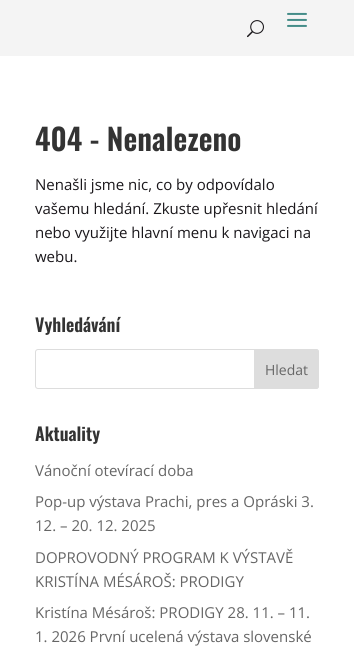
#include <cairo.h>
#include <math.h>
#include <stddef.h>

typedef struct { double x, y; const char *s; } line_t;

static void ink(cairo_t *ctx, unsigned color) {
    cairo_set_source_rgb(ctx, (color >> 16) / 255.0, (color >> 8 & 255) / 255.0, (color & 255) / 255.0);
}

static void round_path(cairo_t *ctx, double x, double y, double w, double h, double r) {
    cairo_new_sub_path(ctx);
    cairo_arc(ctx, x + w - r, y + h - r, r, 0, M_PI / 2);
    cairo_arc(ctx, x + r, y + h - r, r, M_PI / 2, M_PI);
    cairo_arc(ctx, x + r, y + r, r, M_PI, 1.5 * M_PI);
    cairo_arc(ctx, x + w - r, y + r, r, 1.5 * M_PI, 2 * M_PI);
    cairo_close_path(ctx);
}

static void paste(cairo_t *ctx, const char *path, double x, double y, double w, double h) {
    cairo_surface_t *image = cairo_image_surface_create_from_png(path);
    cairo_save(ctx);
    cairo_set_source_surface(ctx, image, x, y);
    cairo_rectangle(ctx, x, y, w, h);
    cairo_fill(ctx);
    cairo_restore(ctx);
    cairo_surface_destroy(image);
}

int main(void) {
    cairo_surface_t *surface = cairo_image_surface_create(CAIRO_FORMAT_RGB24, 354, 659);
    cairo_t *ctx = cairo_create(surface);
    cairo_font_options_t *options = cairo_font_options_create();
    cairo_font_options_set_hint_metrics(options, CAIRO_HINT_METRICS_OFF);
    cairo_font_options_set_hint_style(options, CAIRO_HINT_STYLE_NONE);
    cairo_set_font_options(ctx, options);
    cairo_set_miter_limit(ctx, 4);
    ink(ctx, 0xFFFFFF);
    cairo_paint(ctx);
    ink(ctx, 0xF4F4F4);
    cairo_rectangle(ctx, 0, 0, 354, 56);
    cairo_fill(ctx);
    paste(ctx, "media/1.png", 247, 20, 17, 18);
    paste(ctx, "media/2.png", 287, 12, 20, 15);
    cairo_select_font_face(ctx, "Oswald SemiBold", CAIRO_FONT_SLANT_NORMAL, CAIRO_FONT_WEIGHT_NORMAL);
    cairo_set_font_size(ctx, 30);
    ink(ctx, 0x333333);
    cairo_move_to(ctx, 35, 151);
    cairo_show_text(ctx, "404 - Nenalezeno");
    cairo_select_font_face(ctx, "Open Sans", CAIRO_FONT_SLANT_NORMAL, CAIRO_FONT_WEIGHT_NORMAL);
    cairo_set_font_size(ctx, 15);
    ink(ctx, 0x1A171B);
    {
        static const line_t items[] = {
            {35, 190, "Nenašli jsme nic, co by odpovídalo"},
            {35, 214, "vašemu hledání. Zkuste upřesnit hledání"},
            {35, 238, "nebo využijte hlavní menu k navigaci na"},
            {35, 262, "webu."},
        };
        for (size_t i = 0; i < sizeof items / sizeof *items; i++) {
            cairo_move_to(ctx, items[i].x, items[i].y);
            cairo_show_text(ctx, items[i].s);
        }
    }
    cairo_select_font_face(ctx, "Oswald SemiBold", CAIRO_FONT_SLANT_NORMAL, CAIRO_FONT_WEIGHT_NORMAL);
    cairo_set_font_size(ctx, 18);
    ink(ctx, 0x333333);
    cairo_move_to(ctx, 35, 332);
    cairo_show_text(ctx, "Vyhledávání");
    round_path(ctx, 35.5, 349.5, 283, 39, 2.5);
    ink(ctx, 0xDDDDDD);
    cairo_set_line_width(ctx, 1);
    cairo_stroke(ctx);
    cairo_new_path(ctx);
    cairo_move_to(ctx, 254.5, 349.5);
    cairo_line_to(ctx, 316, 349.5);
    cairo_curve_to(ctx, 317.5, 349.5, 318.5, 350.5, 318.5, 352);
    cairo_line_to(ctx, 318.5, 386);
    cairo_curve_to(ctx, 318.5, 387.5, 317.5, 388.5, 316, 388.5);
    cairo_line_to(ctx, 254.5, 388.5);
    cairo_close_path(ctx);
    cairo_fill_preserve(ctx);
    cairo_stroke(ctx);
    cairo_select_font_face(ctx, "Open Sans", CAIRO_FONT_SLANT_NORMAL, CAIRO_FONT_WEIGHT_NORMAL);
    cairo_set_font_size(ctx, 14);
    ink(ctx, 0x666666);
    cairo_move_to(ctx, 265, 375);
    cairo_show_text(ctx, "Hledat");
    cairo_select_font_face(ctx, "Oswald SemiBold", CAIRO_FONT_SLANT_NORMAL, CAIRO_FONT_WEIGHT_NORMAL);
    cairo_set_font_size(ctx, 18);
    ink(ctx, 0x333333);
    cairo_move_to(ctx, 35, 441);
    cairo_show_text(ctx, "Aktuality");
    cairo_select_font_face(ctx, "Open Sans", CAIRO_FONT_SLANT_NORMAL, CAIRO_FONT_WEIGHT_NORMAL);
    cairo_set_font_size(ctx, 15);
    ink(ctx, 0x666666);
    {
        static const line_t items[] = {
            {35, 476, "Vánoční otevírací doba"},
            {35, 507, "Pop-up výstava Prachi, pres a Opráski 3."},
            {35, 531, "12. – 20. 12. 2025"},
            {35, 563, "DOPROVODNÝ PROGRAM K VÝSTAVĚ"},
            {35, 587, "KRISTÍNA MÉSÁROŠ: PRODIGY"},
            {35, 618, "Kristína Mésároš: PRODIGY 28. 11. – 11."},
            {35, 642, "1. 2026 První ucelená výstava slovenské"},
        };
        for (size_t i = 0; i < sizeof items / sizeof *items; i++) {
            cairo_move_to(ctx, items[i].x, items[i].y);
            cairo_show_text(ctx, items[i].s);
        }
    }
    cairo_surface_write_to_png(surface, "image.png");
    cairo_font_options_destroy(options);
    cairo_destroy(ctx);
    cairo_surface_destroy(surface);
    return 0;
}
